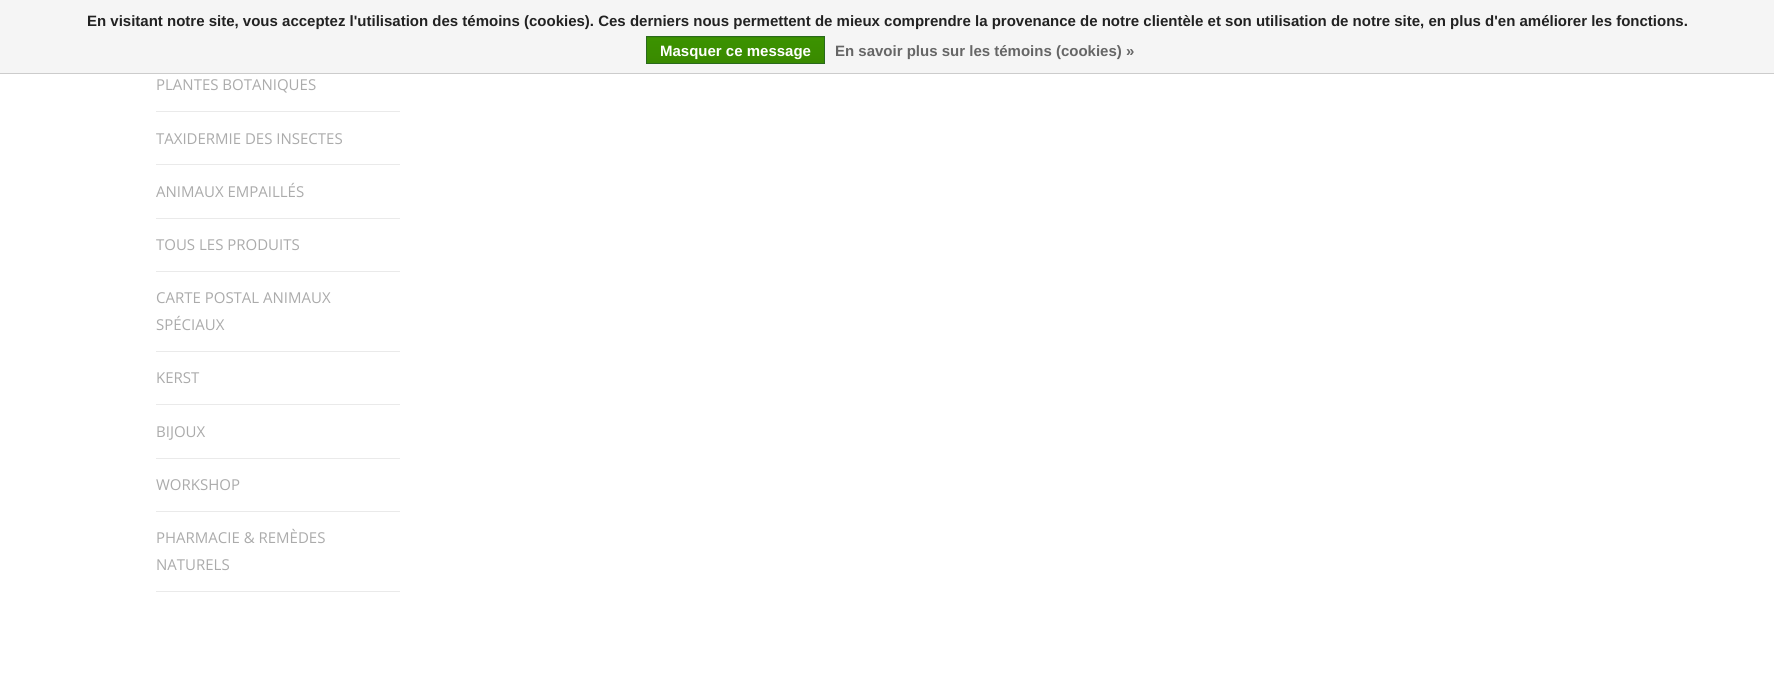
#include <cairo.h>
#include <math.h>
#include <stddef.h>


static void ink(cairo_t *ctx, unsigned color) {
    cairo_set_source_rgb(ctx, (color >> 16) / 255.0, (color >> 8 & 255) / 255.0, (color & 255) / 255.0);
}

int main(void) {
    cairo_surface_t *surface = cairo_image_surface_create(CAIRO_FORMAT_RGB24, 1774, 690);
    cairo_t *ctx = cairo_create(surface);
    cairo_font_options_t *options = cairo_font_options_create();
    cairo_font_options_set_hint_metrics(options, CAIRO_HINT_METRICS_OFF);
    cairo_font_options_set_hint_style(options, CAIRO_HINT_STYLE_NONE);
    cairo_set_font_options(ctx, options);
    cairo_set_miter_limit(ctx, 4);
    cairo_pattern_t *gradient;
    ink(ctx, 0xFFFFFF);
    cairo_paint(ctx);
    ink(ctx, 0xF5F5F5);
    cairo_rectangle(ctx, 0, 0, 1774, 73);
    cairo_fill(ctx);
    ink(ctx, 0xCCCCCC);
    cairo_rectangle(ctx, 0, 73, 1774, 1);
    cairo_fill(ctx);
    cairo_select_font_face(ctx, "Liberation Sans", CAIRO_FONT_SLANT_NORMAL, CAIRO_FONT_WEIGHT_BOLD);
    cairo_set_font_size(ctx, 15);
    ink(ctx, 0x222222);
    cairo_move_to(ctx, 87, 26);
    cairo_show_text(ctx, "En visitant notre site, vous acceptez l'utilisation des témoins (cookies). Ces derniers nous permettent de mieux comprendre la provenance de notre clientèle et son utilisation de notre site, en plus d'en améliorer les fonctions.");
    gradient = cairo_pattern_create_linear(736, 12, 736, 38);
    cairo_pattern_add_color_stop_rgba(gradient, 0, 0.235, 0.576, 0, 1);
    cairo_pattern_add_color_stop_rgba(gradient, 1, 0.224, 0.541, 0, 1);
    cairo_set_source(ctx, gradient);
    cairo_pattern_destroy(gradient);
    cairo_rectangle(ctx, 646, 37, 179, 1);
    cairo_fill(ctx);
    gradient = cairo_pattern_create_linear(736, 37, 736, 63);
    cairo_pattern_add_color_stop_rgba(gradient, 0, 0.235, 0.576, 0, 1);
    cairo_pattern_add_color_stop_rgba(gradient, 1, 0.224, 0.541, 0, 1);
    cairo_set_source(ctx, gradient);
    cairo_pattern_destroy(gradient);
    cairo_rectangle(ctx, 647, 38, 177, 25);
    cairo_fill(ctx);
    cairo_rectangle(ctx, 646.5, 36.5, 178, 27);
    ink(ctx, 0x29691D);
    cairo_set_line_width(ctx, 1);
    cairo_stroke(ctx);
    ink(ctx, 0xFFFFFF);
    cairo_move_to(ctx, 660, 56);
    cairo_show_text(ctx, "Masquer ce message");
    ink(ctx, 0x666666);
    cairo_move_to(ctx, 835, 56);
    cairo_show_text(ctx, "En savoir plus sur les témoins (cookies) »");
    ink(ctx, 0xEAEAEA);
    cairo_rectangle(ctx, 156, 111, 244, 1);
    cairo_fill(ctx);
    cairo_select_font_face(ctx, "Open Sans", CAIRO_FONT_SLANT_NORMAL, CAIRO_FONT_WEIGHT_NORMAL);
    ink(ctx, 0xABABAB);
    cairo_move_to(ctx, 156, 90);
    cairo_show_text(ctx, "PLANTES BOTANIQUES");
    ink(ctx, 0xEAEAEA);
    cairo_rectangle(ctx, 156, 164, 244, 1);
    cairo_fill(ctx);
    ink(ctx, 0xABABAB);
    cairo_move_to(ctx, 156, 144);
    cairo_show_text(ctx, "TAXIDERMIE DES INSECTES");
    ink(ctx, 0xEAEAEA);
    cairo_rectangle(ctx, 156, 218, 244, 1);
    cairo_fill(ctx);
    ink(ctx, 0xABABAB);
    cairo_move_to(ctx, 156, 197);
    cairo_show_text(ctx, "ANIMAUX EMPAILLÉS");
    ink(ctx, 0xEAEAEA);
    cairo_rectangle(ctx, 156, 271, 244, 1);
    cairo_fill(ctx);
    ink(ctx, 0xABABAB);
    cairo_move_to(ctx, 156, 250);
    cairo_show_text(ctx, "TOUS LES PRODUITS");
    ink(ctx, 0xEAEAEA);
    cairo_rectangle(ctx, 156, 351, 244, 1);
    cairo_fill(ctx);
    ink(ctx, 0xABABAB);
    cairo_move_to(ctx, 156, 303);
    cairo_show_text(ctx, "CARTE POSTAL ANIMAUX");
    cairo_move_to(ctx, 156, 330);
    cairo_show_text(ctx, "SPÉCIAUX");
    ink(ctx, 0xEAEAEA);
    cairo_rectangle(ctx, 156, 404, 244, 1);
    cairo_fill(ctx);
    ink(ctx, 0xABABAB);
    cairo_move_to(ctx, 156, 383);
    cairo_show_text(ctx, "KERST");
    ink(ctx, 0xEAEAEA);
    cairo_rectangle(ctx, 156, 458, 244, 1);
    cairo_fill(ctx);
    ink(ctx, 0xABABAB);
    cairo_move_to(ctx, 156, 437);
    cairo_show_text(ctx, "BIJOUX");
    ink(ctx, 0xEAEAEA);
    cairo_rectangle(ctx, 156, 511, 244, 1);
    cairo_fill(ctx);
    ink(ctx, 0xABABAB);
    cairo_move_to(ctx, 156, 490);
    cairo_show_text(ctx, "WORKSHOP");
    ink(ctx, 0xEAEAEA);
    cairo_rectangle(ctx, 156, 591, 244, 1);
    cairo_fill(ctx);
    ink(ctx, 0xABABAB);
    cairo_move_to(ctx, 156, 543);
    cairo_show_text(ctx, "PHARMACIE & REMÈDES");
    cairo_move_to(ctx, 156, 570);
    cairo_show_text(ctx, "NATURELS");
    cairo_surface_write_to_png(surface, "image.png");
    cairo_font_options_destroy(options);
    cairo_destroy(ctx);
    cairo_surface_destroy(surface);
    return 0;
}
